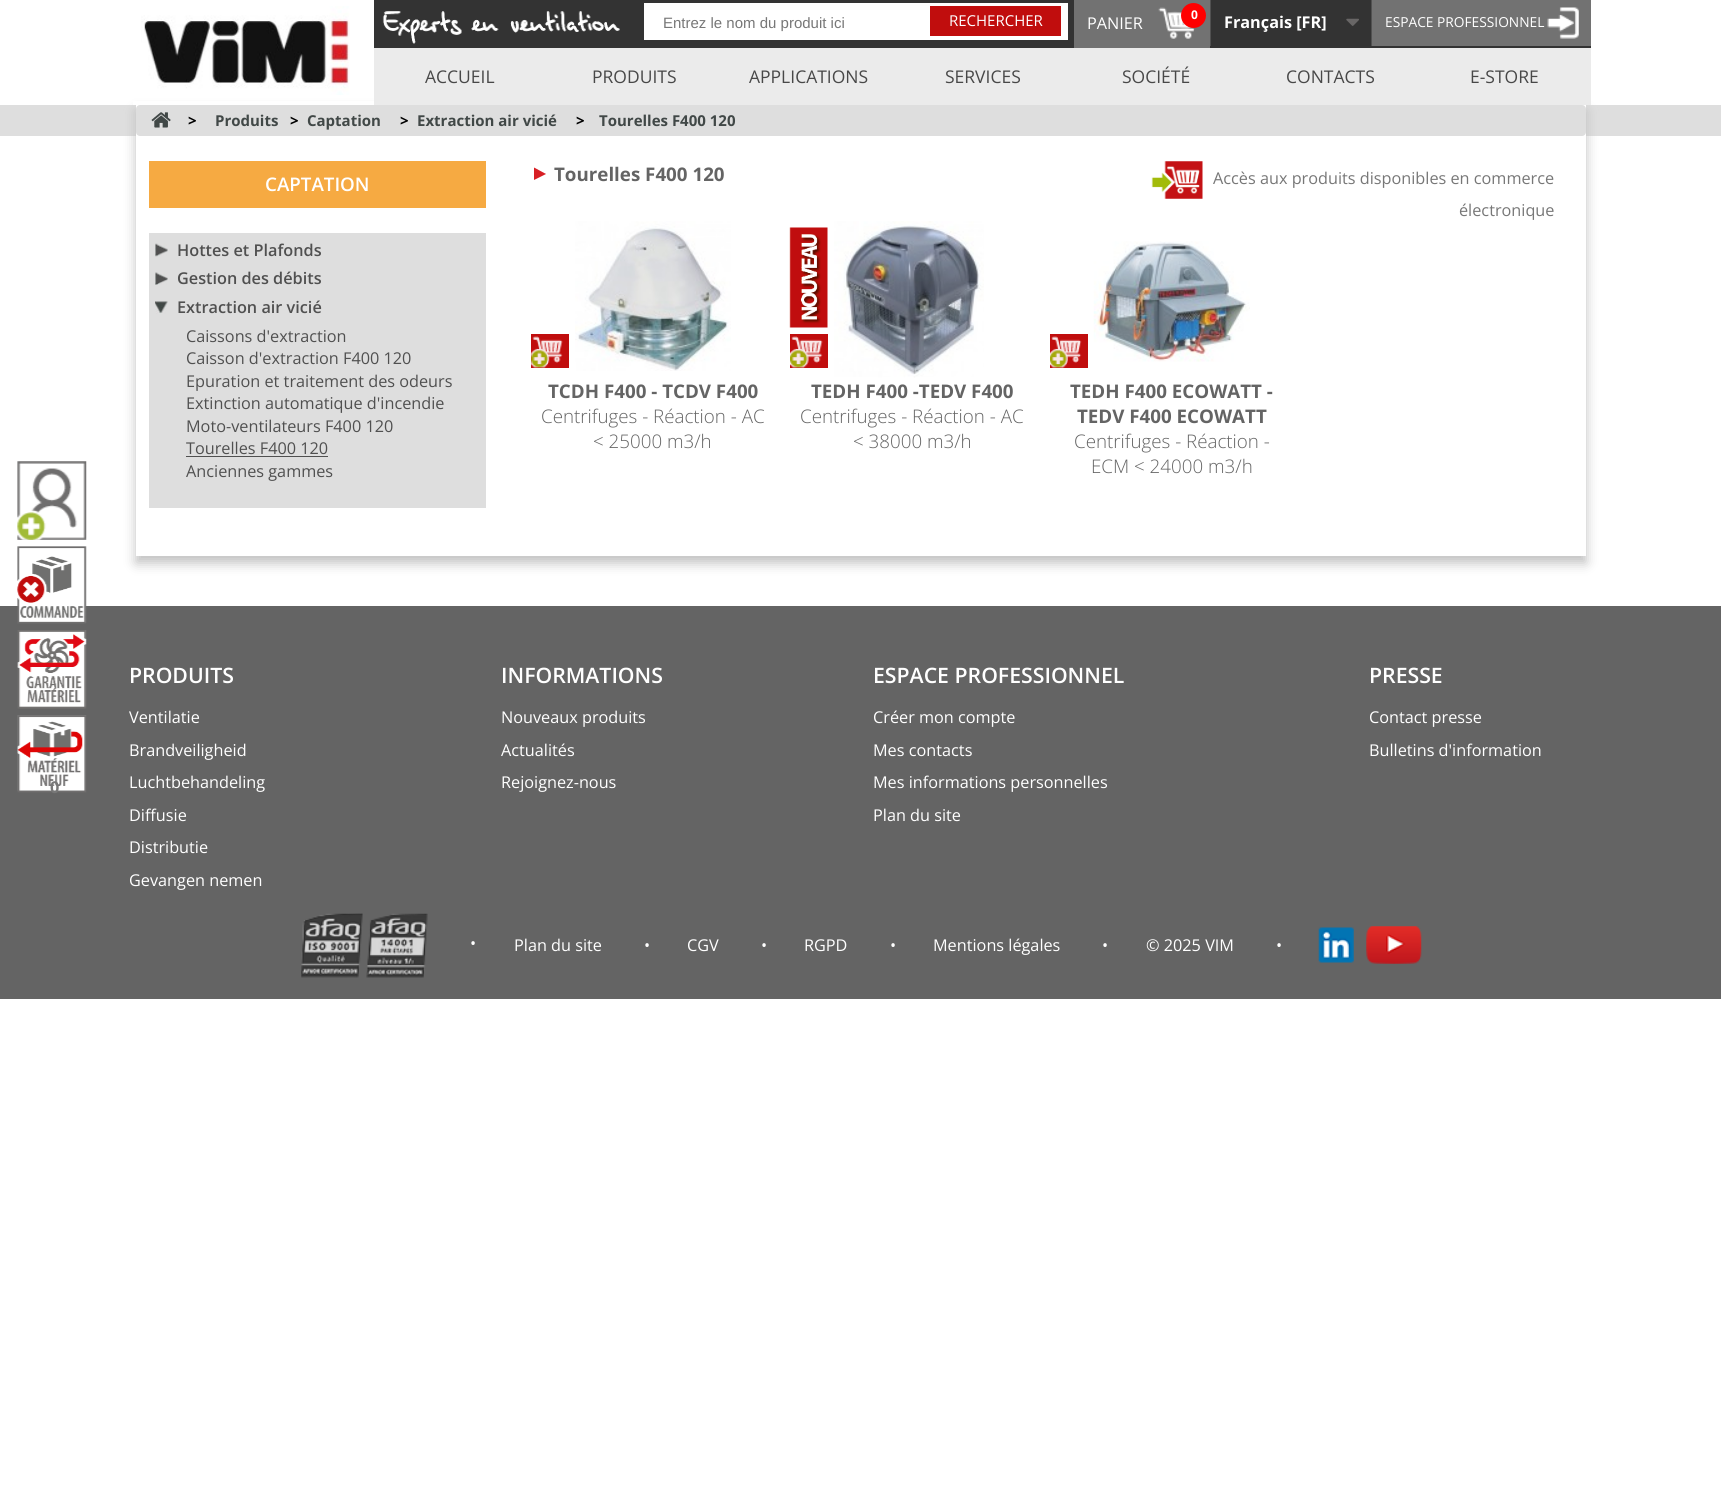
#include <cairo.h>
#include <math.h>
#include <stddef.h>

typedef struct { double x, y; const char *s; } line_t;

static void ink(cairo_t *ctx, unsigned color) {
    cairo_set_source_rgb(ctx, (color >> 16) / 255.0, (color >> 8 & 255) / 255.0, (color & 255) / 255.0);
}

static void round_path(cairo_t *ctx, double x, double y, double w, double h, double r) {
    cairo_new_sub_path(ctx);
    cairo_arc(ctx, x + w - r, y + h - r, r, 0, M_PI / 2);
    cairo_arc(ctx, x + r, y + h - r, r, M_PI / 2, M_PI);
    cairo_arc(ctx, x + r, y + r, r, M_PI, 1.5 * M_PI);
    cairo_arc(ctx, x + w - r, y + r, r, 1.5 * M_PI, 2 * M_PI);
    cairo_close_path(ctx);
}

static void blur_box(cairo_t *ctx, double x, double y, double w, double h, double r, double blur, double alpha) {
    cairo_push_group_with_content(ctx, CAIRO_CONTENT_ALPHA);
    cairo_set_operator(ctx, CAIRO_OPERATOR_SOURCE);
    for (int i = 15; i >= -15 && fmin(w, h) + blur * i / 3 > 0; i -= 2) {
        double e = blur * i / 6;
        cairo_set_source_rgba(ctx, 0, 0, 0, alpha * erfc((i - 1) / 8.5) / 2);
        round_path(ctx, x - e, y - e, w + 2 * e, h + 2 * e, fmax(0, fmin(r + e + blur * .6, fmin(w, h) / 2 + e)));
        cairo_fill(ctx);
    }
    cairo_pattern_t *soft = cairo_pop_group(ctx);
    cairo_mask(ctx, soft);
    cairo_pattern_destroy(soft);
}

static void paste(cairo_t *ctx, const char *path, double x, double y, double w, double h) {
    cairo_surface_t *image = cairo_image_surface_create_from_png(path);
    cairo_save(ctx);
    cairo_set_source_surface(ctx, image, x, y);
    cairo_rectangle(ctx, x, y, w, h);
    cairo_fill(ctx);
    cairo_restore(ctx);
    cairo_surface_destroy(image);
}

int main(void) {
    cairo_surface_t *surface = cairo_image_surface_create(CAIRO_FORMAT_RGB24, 1721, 1495);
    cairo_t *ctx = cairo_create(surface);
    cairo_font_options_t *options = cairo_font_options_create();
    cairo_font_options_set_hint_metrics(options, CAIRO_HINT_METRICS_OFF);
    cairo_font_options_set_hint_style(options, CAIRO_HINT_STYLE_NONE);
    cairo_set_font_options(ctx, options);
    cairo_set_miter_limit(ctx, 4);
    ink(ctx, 0xFFFFFF);
    cairo_paint(ctx);
    ink(ctx, 0xDEDEDE);
    cairo_rectangle(ctx, 0, 105, 1721, 31);
    cairo_fill(ctx);
    ink(ctx, 0xC0C0C0);
    blur_box(ctx, 136, 111, 1450, 452, 0, 6, 1);
    ink(ctx, 0xFFFFFF);
    cairo_rectangle(ctx, 133, 101, 1456, 4);
    cairo_fill(ctx);
    paste(ctx, "media/1.png", 141, 6, 209, 89);
    ink(ctx, 0x333333);
    cairo_rectangle(ctx, 374, 0, 1217, 48);
    cairo_fill(ctx);
    paste(ctx, "media/2.png", 382, 11, 238, 33);
    ink(ctx, 0xFFFFFF);
    cairo_rectangle(ctx, 644, 3, 424, 37);
    cairo_fill(ctx);
    cairo_select_font_face(ctx, "Liberation Sans", CAIRO_FONT_SLANT_NORMAL, CAIRO_FONT_WEIGHT_NORMAL);
    cairo_set_font_size(ctx, 15);
    ink(ctx, 0x777777);
    cairo_move_to(ctx, 663, 28);
    cairo_show_text(ctx, "Entrez le nom du produit ici");
    ink(ctx, 0xC00D0D);
    cairo_rectangle(ctx, 930, 6, 131, 30);
    cairo_fill(ctx);
    cairo_select_font_face(ctx, "Open Sans", CAIRO_FONT_SLANT_NORMAL, CAIRO_FONT_WEIGHT_NORMAL);
    ink(ctx, 0xFFFFFF);
    cairo_move_to(ctx, 949, 26);
    cairo_show_text(ctx, "RECHERCHER");
    ink(ctx, 0x727272);
    cairo_rectangle(ctx, 1074, 0, 136, 48);
    cairo_fill(ctx);
    paste(ctx, "media/3.png", 1158, 7, 37, 32);
    ink(ctx, 0xFF0000);
    cairo_arc(ctx, 1193.5, 15.5, 12.5, 0, 2 * M_PI);
    cairo_fill(ctx);
    cairo_select_font_face(ctx, "Open Sans", CAIRO_FONT_SLANT_NORMAL, CAIRO_FONT_WEIGHT_BOLD);
    cairo_set_font_size(ctx, 12);
    ink(ctx, 0xFFFFFF);
    cairo_move_to(ctx, 1191, 19);
    cairo_show_text(ctx, "0");
    cairo_select_font_face(ctx, "Open Sans", CAIRO_FONT_SLANT_NORMAL, CAIRO_FONT_WEIGHT_NORMAL);
    cairo_set_font_size(ctx, 16.25);
    cairo_move_to(ctx, 1087, 29);
    cairo_show_text(ctx, "PANIER");
    ink(ctx, 0x515151);
    cairo_rectangle(ctx, 1210, 0, 1, 46);
    cairo_fill(ctx);
    cairo_select_font_face(ctx, "Open Sans", CAIRO_FONT_SLANT_NORMAL, CAIRO_FONT_WEIGHT_BOLD);
    ink(ctx, 0xFFFFFF);
    cairo_move_to(ctx, 1224, 28);
    cairo_show_text(ctx, "Français [FR]");
    paste(ctx, "media/4.png", 1346, 18, 13, 8);
    ink(ctx, 0x727272);
    cairo_rectangle(ctx, 1372, 0, 219, 46);
    cairo_fill(ctx);
    ink(ctx, 0x515151);
    cairo_rectangle(ctx, 1371, 0, 1, 46);
    cairo_fill(ctx);
    cairo_select_font_face(ctx, "Open Sans", CAIRO_FONT_SLANT_NORMAL, CAIRO_FONT_WEIGHT_NORMAL);
    cairo_set_font_size(ctx, 13.75);
    ink(ctx, 0xFFFFFF);
    cairo_move_to(ctx, 1385, 27);
    cairo_show_text(ctx, "ESPACE PROFESSIONNEL");
    paste(ctx, "media/5.png", 1547, 7, 32, 32);
    ink(ctx, 0xEBEBEB);
    cairo_rectangle(ctx, 374, 48, 1217, 57);
    cairo_fill(ctx);
    cairo_set_font_size(ctx, 17.5);
    ink(ctx, 0x484848);
    {
        static const line_t items[] = {
            {425, 83, "ACCUEIL"},
            {592, 83, "PRODUITS"},
            {749, 83, "APPLICATIONS"},
            {945, 83, "SERVICES"},
            {1122, 83, "SOCIÉTÉ"},
            {1286, 83, "CONTACTS"},
            {1470, 83, "E-STORE"},
        };
        for (size_t i = 0; i < sizeof items / sizeof *items; i++) {
            cairo_move_to(ctx, items[i].x, items[i].y);
            cairo_show_text(ctx, items[i].s);
        }
    }
    ink(ctx, 0xFFFFFF);
    cairo_rectangle(ctx, 136, 105, 1450, 451);
    cairo_fill(ctx);
    ink(ctx, 0xDEDEDE);
    round_path(ctx, 136, 105, 1450, 31, 4);
    cairo_fill(ctx);
    paste(ctx, "media/6.png", 151, 112, 20, 16);
    cairo_select_font_face(ctx, "Open Sans", CAIRO_FONT_SLANT_NORMAL, CAIRO_FONT_WEIGHT_BOLD);
    cairo_set_font_size(ctx, 15);
    ink(ctx, 0x000000);
    cairo_move_to(ctx, 188, 126);
    cairo_show_text(ctx, ">");
    ink(ctx, 0x414847);
    cairo_move_to(ctx, 215, 126);
    cairo_show_text(ctx, "Produits");
    ink(ctx, 0x000000);
    cairo_move_to(ctx, 290, 126);
    cairo_show_text(ctx, ">");
    ink(ctx, 0x414847);
    cairo_move_to(ctx, 307, 126);
    cairo_show_text(ctx, "Captation");
    ink(ctx, 0x000000);
    cairo_move_to(ctx, 400, 126);
    cairo_show_text(ctx, ">");
    ink(ctx, 0x414847);
    cairo_move_to(ctx, 417, 126);
    cairo_show_text(ctx, "Extraction air vicié");
    ink(ctx, 0x000000);
    cairo_move_to(ctx, 576, 126);
    cairo_show_text(ctx, ">");
    ink(ctx, 0x414847);
    cairo_move_to(ctx, 599, 126);
    cairo_show_text(ctx, "Tourelles F400 120");
    ink(ctx, 0xF6AA42);
    cairo_rectangle(ctx, 149, 161, 337, 47);
    cairo_fill(ctx);
    cairo_select_font_face(ctx, "Open Sans SemiBold", CAIRO_FONT_SLANT_NORMAL, CAIRO_FONT_WEIGHT_NORMAL);
    cairo_set_font_size(ctx, 18.75);
    ink(ctx, 0xFFFFFF);
    cairo_move_to(ctx, 265, 191);
    cairo_show_text(ctx, "CAPTATION");
    ink(ctx, 0xDEDEDE);
    cairo_rectangle(ctx, 149, 233, 337, 275);
    cairo_fill(ctx);
    paste(ctx, "media/7.png", 155, 243, 13, 14);
    cairo_set_font_size(ctx, 16.25);
    ink(ctx, 0x505050);
    cairo_move_to(ctx, 177, 256);
    cairo_show_text(ctx, "Hottes et Plafonds");
    paste(ctx, "media/8.png", 155, 272, 13, 13);
    cairo_move_to(ctx, 177, 284);
    cairo_show_text(ctx, "Gestion des débits");
    paste(ctx, "media/9.png", 155, 301, 13, 13);
    cairo_move_to(ctx, 177, 313);
    cairo_show_text(ctx, "Extraction air vicié");
    cairo_select_font_face(ctx, "Open Sans", CAIRO_FONT_SLANT_NORMAL, CAIRO_FONT_WEIGHT_NORMAL);
    {
        static const line_t items[] = {
            {186, 342, "Caissons d'extraction"},
            {186, 364, "Caisson d'extraction F400 120"},
            {186, 387, "Epuration et traitement des odeurs"},
            {186, 409, "Extinction automatique d'incendie"},
            {186, 432, "Moto-ventilateurs F400 120"},
            {186, 454, "Tourelles F400 120"},
        };
        for (size_t i = 0; i < sizeof items / sizeof *items; i++) {
            cairo_move_to(ctx, items[i].x, items[i].y);
            cairo_show_text(ctx, items[i].s);
        }
    }
    cairo_rectangle(ctx, 186, 456, 142, 1);
    cairo_fill(ctx);
    cairo_move_to(ctx, 186, 477);
    cairo_show_text(ctx, "Anciennes gammes");
    ink(ctx, 0xD81F25);
    cairo_new_path(ctx);
    cairo_move_to(ctx, 534, 180);
    cairo_line_to(ctx, 534, 167.5);
    cairo_line_to(ctx, 546, 174);
    cairo_close_path(ctx);
    cairo_fill(ctx);
    cairo_select_font_face(ctx, "Open Sans", CAIRO_FONT_SLANT_NORMAL, CAIRO_FONT_WEIGHT_BOLD);
    cairo_set_font_size(ctx, 18.75);
    ink(ctx, 0x646464);
    cairo_move_to(ctx, 554, 181);
    cairo_show_text(ctx, "Tourelles F400 120");
    paste(ctx, "media/10.png", 1151, 161, 52, 38);
    cairo_select_font_face(ctx, "Open Sans", CAIRO_FONT_SLANT_NORMAL, CAIRO_FONT_WEIGHT_NORMAL);
    cairo_set_font_size(ctx, 16.25);
    ink(ctx, 0x777777);
    cairo_move_to(ctx, 1213, 184);
    cairo_show_text(ctx, "Accès aux produits disponibles en commerce");
    cairo_move_to(ctx, 1459, 216);
    cairo_show_text(ctx, "électronique");
    ink(ctx, 0xC00D0D);
    cairo_rectangle(ctx, 531, 334, 38, 34);
    cairo_fill(ctx);
    paste(ctx, "media/11.png", 531, 336, 32, 32);
    paste(ctx, "media/12.png", 575, 221, 156, 150);
    cairo_select_font_face(ctx, "Open Sans", CAIRO_FONT_SLANT_NORMAL, CAIRO_FONT_WEIGHT_BOLD);
    cairo_set_font_size(ctx, 18.75);
    ink(ctx, 0x646464);
    cairo_move_to(ctx, 548, 398);
    cairo_show_text(ctx, "TCDH F400 - TCDV F400");
    cairo_select_font_face(ctx, "Open Sans Light", CAIRO_FONT_SLANT_NORMAL, CAIRO_FONT_WEIGHT_NORMAL);
    cairo_move_to(ctx, 541, 423);
    cairo_show_text(ctx, "Centrifuges - Réaction - AC");
    cairo_move_to(ctx, 593, 448);
    cairo_show_text(ctx, "< 25000 m3/h");
    paste(ctx, "media/13.png", 789, 227, 39, 101);
    ink(ctx, 0xC00D0D);
    cairo_rectangle(ctx, 790, 334, 38, 34);
    cairo_fill(ctx);
    paste(ctx, "media/14.png", 790, 336, 33, 32);
    paste(ctx, "media/15.png", 834, 221, 150, 157);
    cairo_select_font_face(ctx, "Open Sans", CAIRO_FONT_SLANT_NORMAL, CAIRO_FONT_WEIGHT_BOLD);
    ink(ctx, 0x646464);
    cairo_move_to(ctx, 811, 398);
    cairo_show_text(ctx, "TEDH F400 -TEDV F400");
    cairo_select_font_face(ctx, "Open Sans Light", CAIRO_FONT_SLANT_NORMAL, CAIRO_FONT_WEIGHT_NORMAL);
    cairo_move_to(ctx, 800, 423);
    cairo_show_text(ctx, "Centrifuges - Réaction - AC");
    cairo_move_to(ctx, 853, 448);
    cairo_show_text(ctx, "< 38000 m3/h");
    ink(ctx, 0xC00D0D);
    cairo_rectangle(ctx, 1050, 334, 38, 34);
    cairo_fill(ctx);
    paste(ctx, "media/16.png", 1050, 336, 32, 32);
    paste(ctx, "media/17.png", 1093, 241, 157, 121);
    cairo_select_font_face(ctx, "Open Sans", CAIRO_FONT_SLANT_NORMAL, CAIRO_FONT_WEIGHT_BOLD);
    ink(ctx, 0x646464);
    cairo_move_to(ctx, 1070, 398);
    cairo_show_text(ctx, "TEDH F400 ECOWATT -");
    cairo_move_to(ctx, 1077, 423);
    cairo_show_text(ctx, "TEDV F400 ECOWATT");
    cairo_select_font_face(ctx, "Open Sans Light", CAIRO_FONT_SLANT_NORMAL, CAIRO_FONT_WEIGHT_NORMAL);
    cairo_move_to(ctx, 1074, 448);
    cairo_show_text(ctx, "Centrifuges - Réaction -");
    cairo_move_to(ctx, 1091, 473);
    cairo_show_text(ctx, "ECM < 24000 m3/h");
    paste(ctx, "media/18.png", 17, 461, 70, 79);
    cairo_rectangle(ctx, 0, 606, 1721, 393);
    cairo_fill(ctx);
    paste(ctx, "media/19.png", 17, 546, 70, 78);
    paste(ctx, "media/20.png", 17, 630, 70, 79);
    paste(ctx, "media/21.png", 17, 715, 70, 78);
    cairo_select_font_face(ctx, "Open Sans", CAIRO_FONT_SLANT_NORMAL, CAIRO_FONT_WEIGHT_BOLD);
    cairo_set_font_size(ctx, 16.25);
    ink(ctx, 0x777777);
    cairo_move_to(ctx, 50, 793);
    cairo_show_text(ctx, "0");
    cairo_select_font_face(ctx, "Open Sans SemiBold", CAIRO_FONT_SLANT_NORMAL, CAIRO_FONT_WEIGHT_NORMAL);
    cairo_set_font_size(ctx, 21.25);
    ink(ctx, 0xFFFFFF);
    cairo_move_to(ctx, 129, 683);
    cairo_show_text(ctx, "PRODUITS");
    cairo_select_font_face(ctx, "Open Sans", CAIRO_FONT_SLANT_NORMAL, CAIRO_FONT_WEIGHT_NORMAL);
    cairo_set_font_size(ctx, 16.25);
    {
        static const line_t items[] = {
            {129, 723, "Ventilatie"},
            {129, 756, "Brandveiligheid"},
            {129, 788, "Luchtbehandeling"},
            {129, 821, "Diffusie"},
            {129, 853, "Distributie"},
            {129, 886, "Gevangen nemen"},
        };
        for (size_t i = 0; i < sizeof items / sizeof *items; i++) {
            cairo_move_to(ctx, items[i].x, items[i].y);
            cairo_show_text(ctx, items[i].s);
        }
    }
    cairo_select_font_face(ctx, "Open Sans SemiBold", CAIRO_FONT_SLANT_NORMAL, CAIRO_FONT_WEIGHT_NORMAL);
    cairo_set_font_size(ctx, 21.25);
    cairo_move_to(ctx, 501, 683);
    cairo_show_text(ctx, "INFORMATIONS");
    cairo_select_font_face(ctx, "Open Sans", CAIRO_FONT_SLANT_NORMAL, CAIRO_FONT_WEIGHT_NORMAL);
    cairo_set_font_size(ctx, 16.25);
    {
        static const line_t items[] = {
            {501, 723, "Nouveaux produits"},
            {501, 756, "Actualités"},
            {501, 788, "Rejoignez-nous"},
        };
        for (size_t i = 0; i < sizeof items / sizeof *items; i++) {
            cairo_move_to(ctx, items[i].x, items[i].y);
            cairo_show_text(ctx, items[i].s);
        }
    }
    cairo_select_font_face(ctx, "Open Sans SemiBold", CAIRO_FONT_SLANT_NORMAL, CAIRO_FONT_WEIGHT_NORMAL);
    cairo_set_font_size(ctx, 21.25);
    cairo_move_to(ctx, 873, 683);
    cairo_show_text(ctx, "ESPACE PROFESSIONNEL");
    cairo_select_font_face(ctx, "Open Sans", CAIRO_FONT_SLANT_NORMAL, CAIRO_FONT_WEIGHT_NORMAL);
    cairo_set_font_size(ctx, 16.25);
    {
        static const line_t items[] = {
            {873, 723, "Créer mon compte"},
            {873, 756, "Mes contacts"},
            {873, 788, "Mes informations personnelles"},
            {873, 821, "Plan du site"},
        };
        for (size_t i = 0; i < sizeof items / sizeof *items; i++) {
            cairo_move_to(ctx, items[i].x, items[i].y);
            cairo_show_text(ctx, items[i].s);
        }
    }
    cairo_select_font_face(ctx, "Open Sans SemiBold", CAIRO_FONT_SLANT_NORMAL, CAIRO_FONT_WEIGHT_NORMAL);
    cairo_set_font_size(ctx, 21.25);
    cairo_move_to(ctx, 1369, 683);
    cairo_show_text(ctx, "PRESSE");
    cairo_select_font_face(ctx, "Open Sans", CAIRO_FONT_SLANT_NORMAL, CAIRO_FONT_WEIGHT_NORMAL);
    cairo_set_font_size(ctx, 16.25);
    cairo_move_to(ctx, 1369, 723);
    cairo_show_text(ctx, "Contact presse");
    cairo_move_to(ctx, 1369, 756);
    cairo_show_text(ctx, "Bulletins d'information");
    paste(ctx, "media/22.png", 301, 913, 62, 65);
    paste(ctx, "media/23.png", 366, 913, 62, 65);
    {
        static const line_t items[] = {
            {470, 949, "•"},
            {514, 951, "Plan du site"},
            {644, 951, "•"},
            {687, 951, "CGV"},
            {761, 951, "•"},
            {804, 951, "RGPD"},
            {890, 951, "•"},
            {933, 951, "Mentions légales"},
            {1102, 951, "•"},
            {1146, 951, "© 2025 VIM"},
            {1276, 951, "•"},
        };
        for (size_t i = 0; i < sizeof items / sizeof *items; i++) {
            cairo_move_to(ctx, items[i].x, items[i].y);
            cairo_show_text(ctx, items[i].s);
        }
    }
    paste(ctx, "media/24.png", 1318, 927, 36, 36);
    paste(ctx, "media/25.png", 1366, 926, 56, 38);
    cairo_surface_write_to_png(surface, "image.png");
    cairo_font_options_destroy(options);
    cairo_destroy(ctx);
    cairo_surface_destroy(surface);
    return 0;
}
